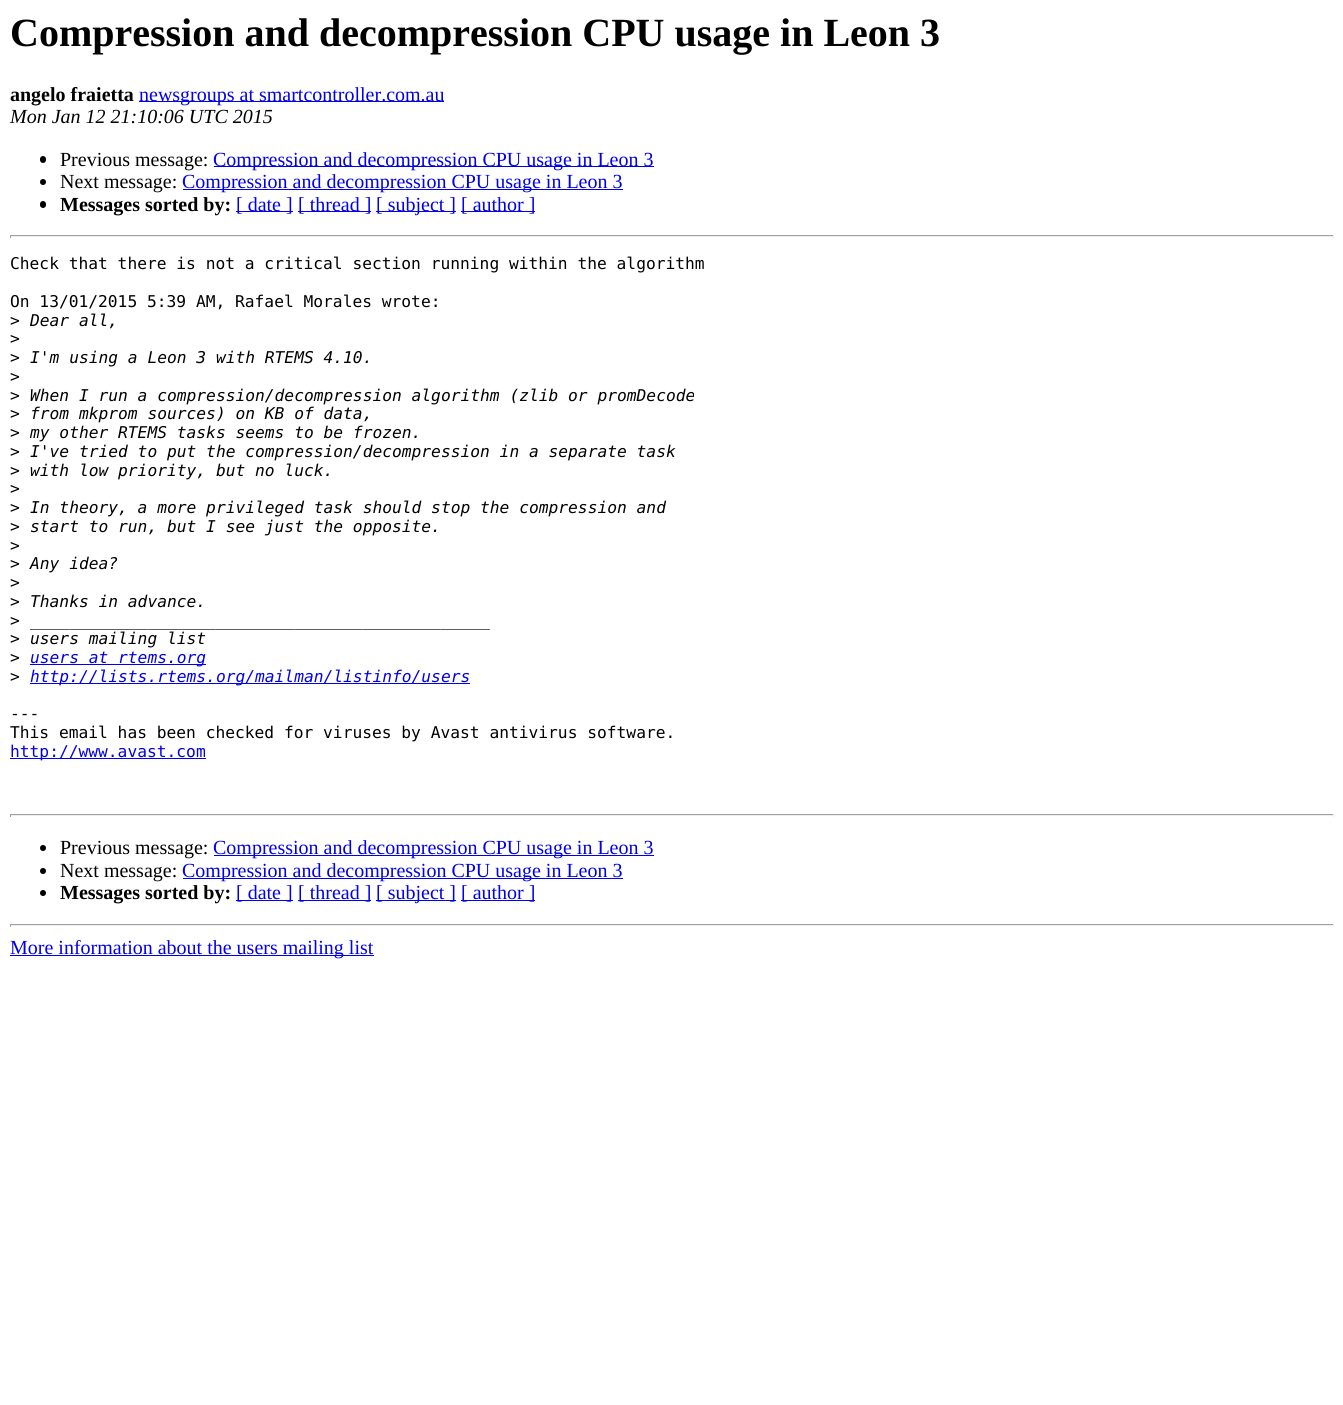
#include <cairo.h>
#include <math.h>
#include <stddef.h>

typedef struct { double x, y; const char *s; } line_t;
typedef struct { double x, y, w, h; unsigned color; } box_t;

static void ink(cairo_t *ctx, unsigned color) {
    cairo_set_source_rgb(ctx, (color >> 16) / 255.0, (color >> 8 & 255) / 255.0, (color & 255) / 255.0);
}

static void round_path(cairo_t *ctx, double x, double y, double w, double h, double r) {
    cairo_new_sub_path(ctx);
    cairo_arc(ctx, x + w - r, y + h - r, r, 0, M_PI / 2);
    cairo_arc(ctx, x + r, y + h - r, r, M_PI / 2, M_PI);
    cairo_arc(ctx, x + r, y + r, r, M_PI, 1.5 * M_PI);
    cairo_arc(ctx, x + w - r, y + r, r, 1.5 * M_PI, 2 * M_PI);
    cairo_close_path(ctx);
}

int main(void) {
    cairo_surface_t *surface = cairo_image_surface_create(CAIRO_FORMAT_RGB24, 1343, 1405);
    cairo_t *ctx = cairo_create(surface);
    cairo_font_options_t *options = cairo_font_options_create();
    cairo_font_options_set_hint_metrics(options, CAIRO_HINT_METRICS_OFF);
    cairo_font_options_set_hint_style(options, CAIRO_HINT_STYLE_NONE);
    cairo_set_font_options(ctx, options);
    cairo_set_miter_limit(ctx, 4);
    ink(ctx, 0xFFFFFF);
    cairo_paint(ctx);
    cairo_select_font_face(ctx, "Liberation Serif", CAIRO_FONT_SLANT_NORMAL, CAIRO_FONT_WEIGHT_BOLD);
    cairo_set_font_size(ctx, 40);
    ink(ctx, 0x000000);
    cairo_move_to(ctx, 10, 46);
    cairo_show_text(ctx, "Compression and decompression CPU usage in Leon 3");
    cairo_set_font_size(ctx, 20);
    cairo_move_to(ctx, 10, 101);
    cairo_show_text(ctx, "angelo fraietta");
    ink(ctx, 0x0000EE);
    cairo_rectangle(ctx, 139, 101, 305, 1);
    cairo_fill(ctx);
    cairo_select_font_face(ctx, "Liberation Serif", CAIRO_FONT_SLANT_NORMAL, CAIRO_FONT_WEIGHT_NORMAL);
    cairo_move_to(ctx, 139, 101);
    cairo_show_text(ctx, "newsgroups at smartcontroller.com.au");
    cairo_select_font_face(ctx, "Liberation Serif", CAIRO_FONT_SLANT_ITALIC, CAIRO_FONT_WEIGHT_NORMAL);
    ink(ctx, 0x000000);
    cairo_move_to(ctx, 10, 123);
    cairo_show_text(ctx, "Mon Jan 12 21:10:06 UTC 2015");
    round_path(ctx, 40, 156, 6, 7, 3);
    cairo_fill(ctx);
    cairo_select_font_face(ctx, "Liberation Serif", CAIRO_FONT_SLANT_NORMAL, CAIRO_FONT_WEIGHT_NORMAL);
    cairo_move_to(ctx, 60, 166);
    cairo_show_text(ctx, "Previous message:");
    ink(ctx, 0x0000EE);
    cairo_rectangle(ctx, 214, 166, 440, 1);
    cairo_fill(ctx);
    cairo_move_to(ctx, 213, 166);
    cairo_show_text(ctx, "Compression and decompression CPU usage in Leon 3");
    ink(ctx, 0x000000);
    cairo_new_path(ctx);
    cairo_arc(ctx, 43, 182, 3, 0, 2 * M_PI);
    cairo_fill(ctx);
    cairo_move_to(ctx, 60, 188);
    cairo_show_text(ctx, "Next message:");
    ink(ctx, 0x0000EE);
    cairo_rectangle(ctx, 183, 189, 440, 1);
    cairo_fill(ctx);
    cairo_move_to(ctx, 182, 188);
    cairo_show_text(ctx, "Compression and decompression CPU usage in Leon 3");
    ink(ctx, 0x000000);
    round_path(ctx, 40, 201, 6, 7, 3);
    cairo_fill(ctx);
    cairo_select_font_face(ctx, "Liberation Serif", CAIRO_FONT_SLANT_NORMAL, CAIRO_FONT_WEIGHT_BOLD);
    cairo_move_to(ctx, 60, 211);
    cairo_show_text(ctx, "Messages sorted by:");
    ink(ctx, 0x0000EE);
    cairo_rectangle(ctx, 236, 211, 57, 1);
    cairo_fill(ctx);
    cairo_select_font_face(ctx, "Liberation Serif", CAIRO_FONT_SLANT_NORMAL, CAIRO_FONT_WEIGHT_NORMAL);
    cairo_move_to(ctx, 236, 211);
    cairo_show_text(ctx, "[ date ]");
    cairo_rectangle(ctx, 298, 211, 73, 1);
    cairo_fill(ctx);
    cairo_move_to(ctx, 298, 211);
    cairo_show_text(ctx, "[ thread ]");
    cairo_rectangle(ctx, 376, 211, 80, 1);
    cairo_fill(ctx);
    cairo_move_to(ctx, 376, 211);
    cairo_show_text(ctx, "[ subject ]");
    cairo_rectangle(ctx, 461, 211, 74, 1);
    cairo_fill(ctx);
    cairo_move_to(ctx, 461, 211);
    cairo_show_text(ctx, "[ author ]");
    {
        static const box_t items[] = {
            {10, 235, 1324, 1, 0x9F9F9F},
            {1333, 235, 1, 3, 0xEEEEEE},
            {10, 236, 1324, 1, 0xEEEEEE},
            {10, 235, 1, 3, 0x9F9F9F},
        };
        for (size_t i = 0; i < sizeof items / sizeof *items; i++) {
            ink(ctx, items[i].color);
            cairo_rectangle(ctx, items[i].x, items[i].y, items[i].w, items[i].h);
            cairo_fill(ctx);
        }
    }
    cairo_select_font_face(ctx, "DejaVu Sans Mono", CAIRO_FONT_SLANT_NORMAL, CAIRO_FONT_WEIGHT_NORMAL);
    cairo_set_font_size(ctx, 16.25);
    ink(ctx, 0x000000);
    {
        static const line_t items[] = {
            {10, 269, "Check that there is not a critical section running within the algorithm"},
            {10, 307, "On 13/01/2015 5:39 AM, Rafael Morales wrote:"},
            {10, 326, ">"},
        };
        for (size_t i = 0; i < sizeof items / sizeof *items; i++) {
            cairo_move_to(ctx, items[i].x, items[i].y);
            cairo_show_text(ctx, items[i].s);
        }
    }
    cairo_select_font_face(ctx, "DejaVu Sans Mono", CAIRO_FONT_SLANT_ITALIC, CAIRO_FONT_WEIGHT_NORMAL);
    cairo_move_to(ctx, 30, 326);
    cairo_show_text(ctx, "Dear all,");
    cairo_select_font_face(ctx, "DejaVu Sans Mono", CAIRO_FONT_SLANT_NORMAL, CAIRO_FONT_WEIGHT_NORMAL);
    cairo_move_to(ctx, 10, 344);
    cairo_show_text(ctx, ">");
    cairo_move_to(ctx, 10, 363);
    cairo_show_text(ctx, ">");
    cairo_select_font_face(ctx, "DejaVu Sans Mono", CAIRO_FONT_SLANT_ITALIC, CAIRO_FONT_WEIGHT_NORMAL);
    cairo_move_to(ctx, 30, 363);
    cairo_show_text(ctx, "I'm using a Leon 3 with RTEMS 4.10.");
    cairo_select_font_face(ctx, "DejaVu Sans Mono", CAIRO_FONT_SLANT_NORMAL, CAIRO_FONT_WEIGHT_NORMAL);
    cairo_move_to(ctx, 10, 382);
    cairo_show_text(ctx, ">");
    cairo_move_to(ctx, 10, 401);
    cairo_show_text(ctx, ">");
    cairo_select_font_face(ctx, "DejaVu Sans Mono", CAIRO_FONT_SLANT_ITALIC, CAIRO_FONT_WEIGHT_NORMAL);
    cairo_move_to(ctx, 30, 401);
    cairo_show_text(ctx, "When I run a compression/decompression algorithm (zlib or promDecode");
    cairo_select_font_face(ctx, "DejaVu Sans Mono", CAIRO_FONT_SLANT_NORMAL, CAIRO_FONT_WEIGHT_NORMAL);
    cairo_move_to(ctx, 10, 419);
    cairo_show_text(ctx, ">");
    cairo_select_font_face(ctx, "DejaVu Sans Mono", CAIRO_FONT_SLANT_ITALIC, CAIRO_FONT_WEIGHT_NORMAL);
    cairo_move_to(ctx, 30, 419);
    cairo_show_text(ctx, "from mkprom sources) on KB of data,");
    cairo_select_font_face(ctx, "DejaVu Sans Mono", CAIRO_FONT_SLANT_NORMAL, CAIRO_FONT_WEIGHT_NORMAL);
    cairo_move_to(ctx, 10, 438);
    cairo_show_text(ctx, ">");
    cairo_select_font_face(ctx, "DejaVu Sans Mono", CAIRO_FONT_SLANT_ITALIC, CAIRO_FONT_WEIGHT_NORMAL);
    cairo_move_to(ctx, 30, 438);
    cairo_show_text(ctx, "my other RTEMS tasks seems to be frozen.");
    cairo_select_font_face(ctx, "DejaVu Sans Mono", CAIRO_FONT_SLANT_NORMAL, CAIRO_FONT_WEIGHT_NORMAL);
    cairo_move_to(ctx, 10, 457);
    cairo_show_text(ctx, ">");
    cairo_select_font_face(ctx, "DejaVu Sans Mono", CAIRO_FONT_SLANT_ITALIC, CAIRO_FONT_WEIGHT_NORMAL);
    cairo_move_to(ctx, 30, 457);
    cairo_show_text(ctx, "I've tried to put the compression/decompression in a separate task");
    cairo_select_font_face(ctx, "DejaVu Sans Mono", CAIRO_FONT_SLANT_NORMAL, CAIRO_FONT_WEIGHT_NORMAL);
    cairo_move_to(ctx, 10, 476);
    cairo_show_text(ctx, ">");
    cairo_select_font_face(ctx, "DejaVu Sans Mono", CAIRO_FONT_SLANT_ITALIC, CAIRO_FONT_WEIGHT_NORMAL);
    cairo_move_to(ctx, 30, 476);
    cairo_show_text(ctx, "with low priority, but no luck.");
    cairo_select_font_face(ctx, "DejaVu Sans Mono", CAIRO_FONT_SLANT_NORMAL, CAIRO_FONT_WEIGHT_NORMAL);
    cairo_move_to(ctx, 10, 494);
    cairo_show_text(ctx, ">");
    cairo_move_to(ctx, 10, 513);
    cairo_show_text(ctx, ">");
    cairo_select_font_face(ctx, "DejaVu Sans Mono", CAIRO_FONT_SLANT_ITALIC, CAIRO_FONT_WEIGHT_NORMAL);
    cairo_move_to(ctx, 30, 513);
    cairo_show_text(ctx, "In theory, a more privileged task should stop the compression and");
    cairo_select_font_face(ctx, "DejaVu Sans Mono", CAIRO_FONT_SLANT_NORMAL, CAIRO_FONT_WEIGHT_NORMAL);
    cairo_move_to(ctx, 10, 532);
    cairo_show_text(ctx, ">");
    cairo_select_font_face(ctx, "DejaVu Sans Mono", CAIRO_FONT_SLANT_ITALIC, CAIRO_FONT_WEIGHT_NORMAL);
    cairo_move_to(ctx, 30, 532);
    cairo_show_text(ctx, "start to run, but I see just the opposite.");
    cairo_select_font_face(ctx, "DejaVu Sans Mono", CAIRO_FONT_SLANT_NORMAL, CAIRO_FONT_WEIGHT_NORMAL);
    cairo_move_to(ctx, 10, 551);
    cairo_show_text(ctx, ">");
    cairo_move_to(ctx, 10, 569);
    cairo_show_text(ctx, ">");
    cairo_select_font_face(ctx, "DejaVu Sans Mono", CAIRO_FONT_SLANT_ITALIC, CAIRO_FONT_WEIGHT_NORMAL);
    cairo_move_to(ctx, 30, 569);
    cairo_show_text(ctx, "Any idea?");
    cairo_select_font_face(ctx, "DejaVu Sans Mono", CAIRO_FONT_SLANT_NORMAL, CAIRO_FONT_WEIGHT_NORMAL);
    cairo_move_to(ctx, 10, 588);
    cairo_show_text(ctx, ">");
    cairo_move_to(ctx, 10, 607);
    cairo_show_text(ctx, ">");
    cairo_select_font_face(ctx, "DejaVu Sans Mono", CAIRO_FONT_SLANT_ITALIC, CAIRO_FONT_WEIGHT_NORMAL);
    cairo_move_to(ctx, 30, 607);
    cairo_show_text(ctx, "Thanks in advance.");
    cairo_select_font_face(ctx, "DejaVu Sans Mono", CAIRO_FONT_SLANT_NORMAL, CAIRO_FONT_WEIGHT_NORMAL);
    cairo_move_to(ctx, 10, 626);
    cairo_show_text(ctx, ">");
    cairo_select_font_face(ctx, "DejaVu Sans Mono", CAIRO_FONT_SLANT_ITALIC, CAIRO_FONT_WEIGHT_NORMAL);
    cairo_move_to(ctx, 30, 626);
    cairo_show_text(ctx, "_______________________________________________");
    cairo_select_font_face(ctx, "DejaVu Sans Mono", CAIRO_FONT_SLANT_NORMAL, CAIRO_FONT_WEIGHT_NORMAL);
    cairo_move_to(ctx, 10, 644);
    cairo_show_text(ctx, ">");
    cairo_select_font_face(ctx, "DejaVu Sans Mono", CAIRO_FONT_SLANT_ITALIC, CAIRO_FONT_WEIGHT_NORMAL);
    cairo_move_to(ctx, 30, 644);
    cairo_show_text(ctx, "users mailing list");
    cairo_select_font_face(ctx, "DejaVu Sans Mono", CAIRO_FONT_SLANT_NORMAL, CAIRO_FONT_WEIGHT_NORMAL);
    cairo_move_to(ctx, 10, 663);
    cairo_show_text(ctx, ">");
    ink(ctx, 0x0000EE);
    cairo_rectangle(ctx, 30, 664, 176, 1);
    cairo_fill(ctx);
    cairo_select_font_face(ctx, "DejaVu Sans Mono", CAIRO_FONT_SLANT_ITALIC, CAIRO_FONT_WEIGHT_NORMAL);
    cairo_move_to(ctx, 30, 663);
    cairo_show_text(ctx, "users at rtems.org");
    cairo_select_font_face(ctx, "DejaVu Sans Mono", CAIRO_FONT_SLANT_NORMAL, CAIRO_FONT_WEIGHT_NORMAL);
    ink(ctx, 0x000000);
    cairo_move_to(ctx, 10, 682);
    cairo_show_text(ctx, ">");
    ink(ctx, 0x0000EE);
    cairo_rectangle(ctx, 30, 683, 440, 1);
    cairo_fill(ctx);
    cairo_select_font_face(ctx, "DejaVu Sans Mono", CAIRO_FONT_SLANT_ITALIC, CAIRO_FONT_WEIGHT_NORMAL);
    cairo_move_to(ctx, 30, 682);
    cairo_show_text(ctx, "http://lists.rtems.org/mailman/listinfo/users");
    cairo_select_font_face(ctx, "DejaVu Sans Mono", CAIRO_FONT_SLANT_NORMAL, CAIRO_FONT_WEIGHT_NORMAL);
    ink(ctx, 0x000000);
    cairo_move_to(ctx, 10, 719);
    cairo_show_text(ctx, "---");
    cairo_move_to(ctx, 10, 738);
    cairo_show_text(ctx, "This email has been checked for viruses by Avast antivirus software.");
    ink(ctx, 0x0000EE);
    cairo_rectangle(ctx, 10, 758, 196, 1);
    cairo_fill(ctx);
    cairo_move_to(ctx, 10, 757);
    cairo_show_text(ctx, "http://www.avast.com");
    {
        static const box_t items[] = {
            {10, 814, 1324, 1, 0x9F9F9F},
            {1333, 814, 1, 3, 0xEEEEEE},
            {10, 815, 1324, 1, 0xEEEEEE},
            {10, 814, 1, 3, 0x9F9F9F},
        };
        for (size_t i = 0; i < sizeof items / sizeof *items; i++) {
            ink(ctx, items[i].color);
            cairo_rectangle(ctx, items[i].x, items[i].y, items[i].w, items[i].h);
            cairo_fill(ctx);
        }
    }
    ink(ctx, 0x000000);
    cairo_new_path(ctx);
    cairo_arc(ctx, 43, 848, 3, 0, 2 * M_PI);
    cairo_fill(ctx);
    cairo_select_font_face(ctx, "Liberation Serif", CAIRO_FONT_SLANT_NORMAL, CAIRO_FONT_WEIGHT_NORMAL);
    cairo_set_font_size(ctx, 20);
    cairo_move_to(ctx, 60, 854);
    cairo_show_text(ctx, "Previous message:");
    ink(ctx, 0x0000EE);
    cairo_rectangle(ctx, 214, 855, 440, 1);
    cairo_fill(ctx);
    cairo_move_to(ctx, 213, 854);
    cairo_show_text(ctx, "Compression and decompression CPU usage in Leon 3");
    ink(ctx, 0x000000);
    cairo_new_path(ctx);
    cairo_arc(ctx, 43, 871, 3, 0, 2 * M_PI);
    cairo_fill(ctx);
    cairo_move_to(ctx, 60, 877);
    cairo_show_text(ctx, "Next message:");
    ink(ctx, 0x0000EE);
    cairo_rectangle(ctx, 183, 878, 440, 1);
    cairo_fill(ctx);
    cairo_move_to(ctx, 182, 877);
    cairo_show_text(ctx, "Compression and decompression CPU usage in Leon 3");
    ink(ctx, 0x000000);
    cairo_new_path(ctx);
    cairo_arc(ctx, 43, 893, 3, 0, 2 * M_PI);
    cairo_fill(ctx);
    cairo_select_font_face(ctx, "Liberation Serif", CAIRO_FONT_SLANT_NORMAL, CAIRO_FONT_WEIGHT_BOLD);
    cairo_move_to(ctx, 60, 899);
    cairo_show_text(ctx, "Messages sorted by:");
    ink(ctx, 0x0000EE);
    cairo_rectangle(ctx, 236, 900, 57, 1);
    cairo_fill(ctx);
    cairo_select_font_face(ctx, "Liberation Serif", CAIRO_FONT_SLANT_NORMAL, CAIRO_FONT_WEIGHT_NORMAL);
    cairo_move_to(ctx, 236, 899);
    cairo_show_text(ctx, "[ date ]");
    cairo_rectangle(ctx, 298, 900, 73, 1);
    cairo_fill(ctx);
    cairo_move_to(ctx, 298, 899);
    cairo_show_text(ctx, "[ thread ]");
    cairo_rectangle(ctx, 376, 900, 80, 1);
    cairo_fill(ctx);
    cairo_move_to(ctx, 376, 899);
    cairo_show_text(ctx, "[ subject ]");
    cairo_rectangle(ctx, 461, 900, 74, 1);
    cairo_fill(ctx);
    cairo_move_to(ctx, 461, 899);
    cairo_show_text(ctx, "[ author ]");
    {
        static const box_t items[] = {
            {10, 924, 1324, 1, 0x9F9F9F},
            {1333, 924, 1, 3, 0xEEEEEE},
            {10, 925, 1324, 1, 0xEEEEEE},
            {10, 924, 1, 3, 0x9F9F9F},
            {10, 955, 364, 1, 0x0000EE},
        };
        for (size_t i = 0; i < sizeof items / sizeof *items; i++) {
            ink(ctx, items[i].color);
            cairo_rectangle(ctx, items[i].x, items[i].y, items[i].w, items[i].h);
            cairo_fill(ctx);
        }
    }
    cairo_move_to(ctx, 10, 954);
    cairo_show_text(ctx, "More information about the users mailing list");
    cairo_surface_write_to_png(surface, "image.png");
    cairo_font_options_destroy(options);
    cairo_destroy(ctx);
    cairo_surface_destroy(surface);
    return 0;
}
